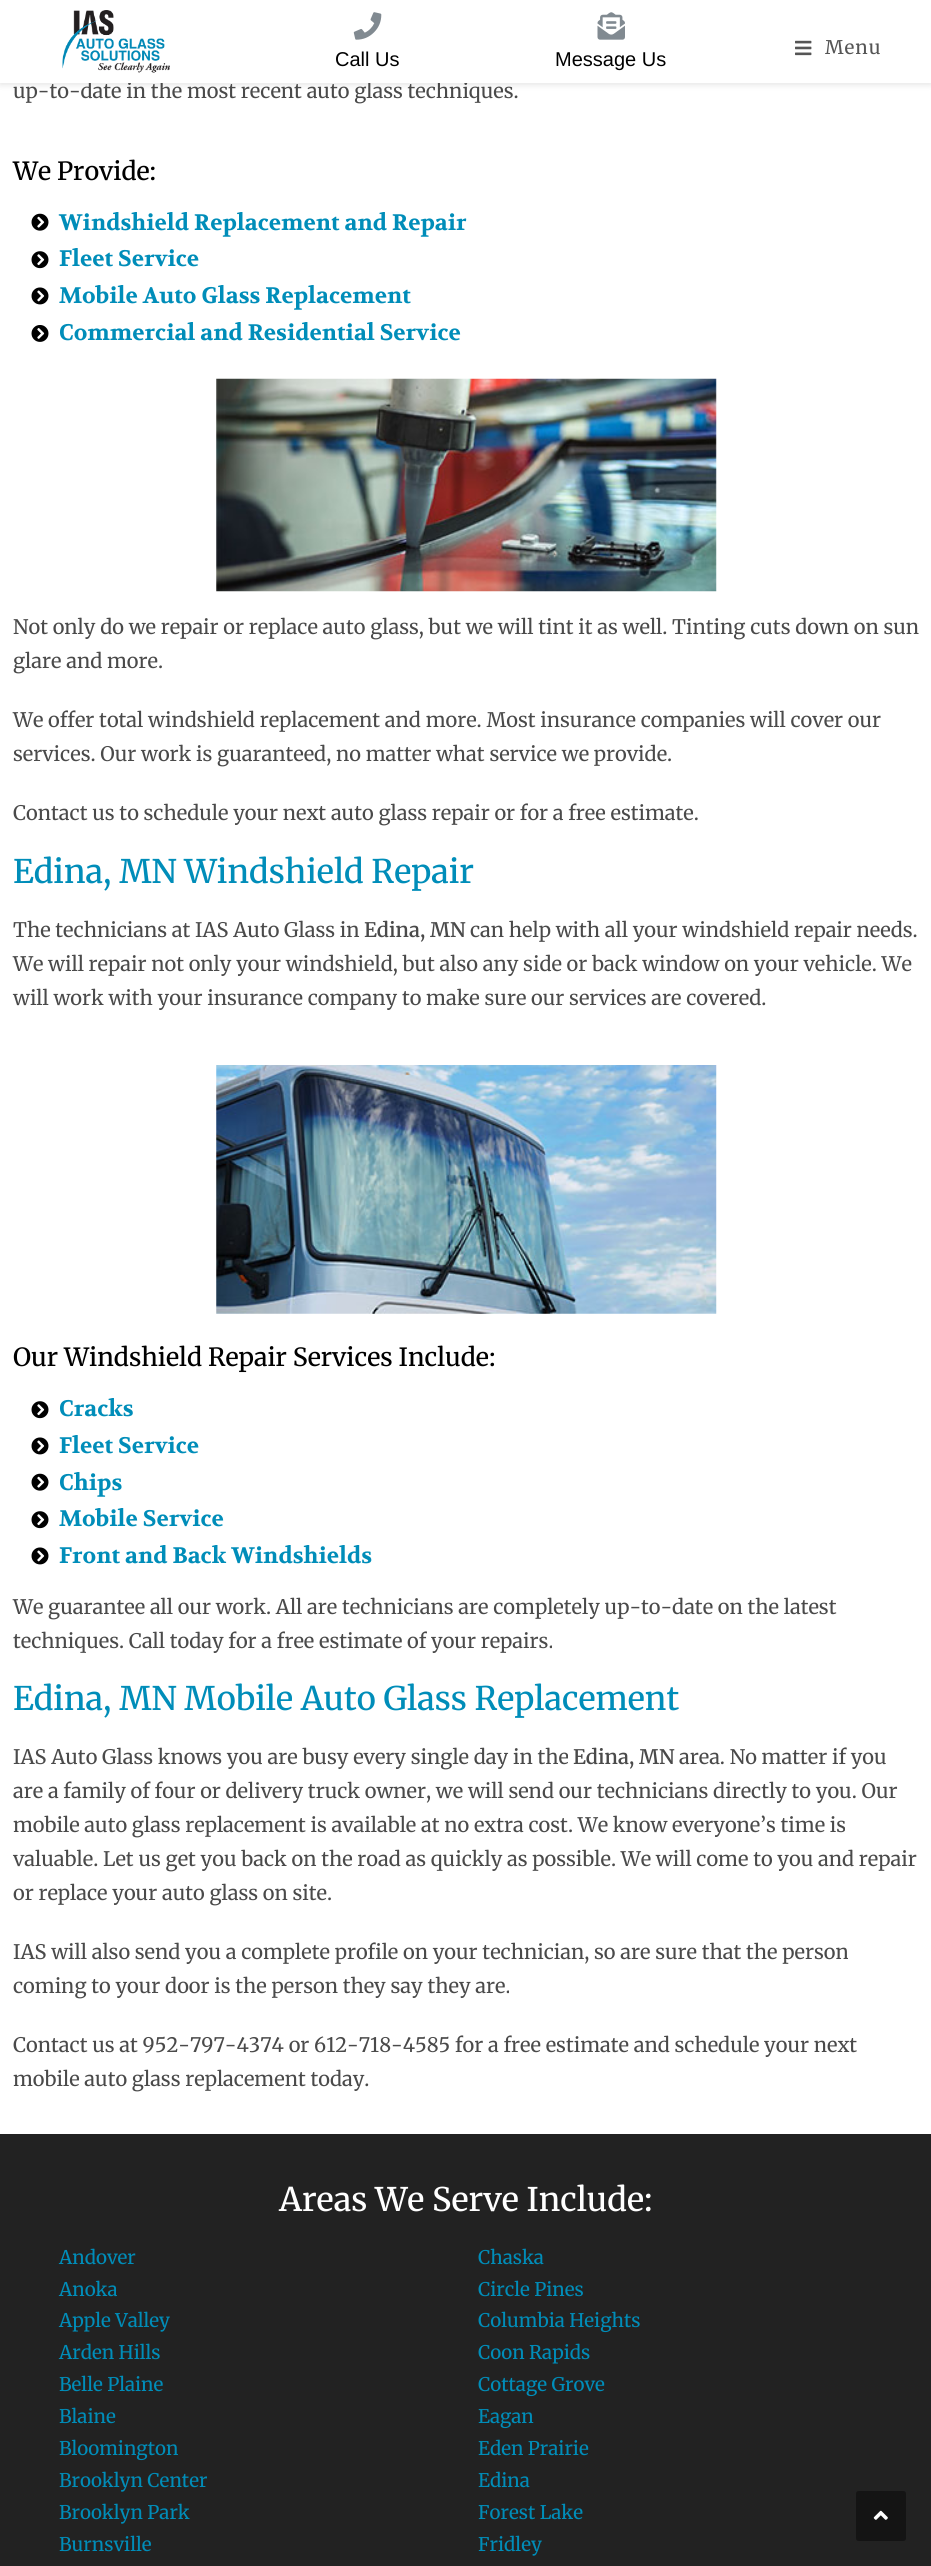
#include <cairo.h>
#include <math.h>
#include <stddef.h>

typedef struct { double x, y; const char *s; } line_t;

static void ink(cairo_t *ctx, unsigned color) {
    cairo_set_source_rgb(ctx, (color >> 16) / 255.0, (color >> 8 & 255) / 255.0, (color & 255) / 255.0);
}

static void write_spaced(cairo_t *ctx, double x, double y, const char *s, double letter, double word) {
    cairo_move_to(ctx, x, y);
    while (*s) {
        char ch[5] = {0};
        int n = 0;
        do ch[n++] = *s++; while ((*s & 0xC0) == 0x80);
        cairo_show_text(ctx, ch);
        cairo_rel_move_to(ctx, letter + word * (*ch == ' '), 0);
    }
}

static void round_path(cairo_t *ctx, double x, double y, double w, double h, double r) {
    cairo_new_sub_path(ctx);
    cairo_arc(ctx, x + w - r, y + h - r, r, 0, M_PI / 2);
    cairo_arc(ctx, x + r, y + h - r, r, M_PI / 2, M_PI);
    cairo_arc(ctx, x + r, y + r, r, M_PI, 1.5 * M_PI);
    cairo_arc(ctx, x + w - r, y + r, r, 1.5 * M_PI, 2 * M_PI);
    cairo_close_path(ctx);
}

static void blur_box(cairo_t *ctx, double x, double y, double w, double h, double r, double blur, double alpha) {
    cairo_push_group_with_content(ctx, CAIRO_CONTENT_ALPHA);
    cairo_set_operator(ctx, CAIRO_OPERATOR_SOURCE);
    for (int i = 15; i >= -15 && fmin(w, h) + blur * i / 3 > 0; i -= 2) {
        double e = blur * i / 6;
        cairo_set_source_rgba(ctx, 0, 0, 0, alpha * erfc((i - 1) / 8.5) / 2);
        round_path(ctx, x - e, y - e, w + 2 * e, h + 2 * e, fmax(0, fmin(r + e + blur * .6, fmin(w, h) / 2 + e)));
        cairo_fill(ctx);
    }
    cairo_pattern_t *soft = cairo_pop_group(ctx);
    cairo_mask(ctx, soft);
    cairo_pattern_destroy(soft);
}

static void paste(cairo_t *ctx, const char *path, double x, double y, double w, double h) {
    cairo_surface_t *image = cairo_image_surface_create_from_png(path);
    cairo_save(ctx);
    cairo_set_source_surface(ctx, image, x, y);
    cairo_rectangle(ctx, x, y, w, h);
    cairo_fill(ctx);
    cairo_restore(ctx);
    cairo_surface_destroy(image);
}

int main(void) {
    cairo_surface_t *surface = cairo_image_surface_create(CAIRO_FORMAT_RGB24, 931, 2566);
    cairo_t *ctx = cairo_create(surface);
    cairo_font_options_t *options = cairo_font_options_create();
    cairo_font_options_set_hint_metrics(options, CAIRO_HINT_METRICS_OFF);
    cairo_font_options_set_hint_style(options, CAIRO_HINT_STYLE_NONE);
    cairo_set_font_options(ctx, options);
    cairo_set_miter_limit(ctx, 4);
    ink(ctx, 0xFFFFFF);
    cairo_paint(ctx);
    ink(ctx, 0x000000);
    blur_box(ctx, 0, 3, 931, 82, 0, 3, 0.1);
    cairo_select_font_face(ctx, "Merriweather", CAIRO_FONT_SLANT_NORMAL, CAIRO_FONT_WEIGHT_NORMAL);
    cairo_set_font_size(ctx, 20);
    ink(ctx, 0x4A4A4A);
    cairo_move_to(ctx, 13, 98);
    cairo_show_text(ctx, "up-to-date in the most recent auto glass techniques.");
    ink(ctx, 0xFFFFFF);
    cairo_rectangle(ctx, 0, 0, 931, 83);
    cairo_fill(ctx);
    paste(ctx, "media/1.png", 62, 10, 108, 63);
    paste(ctx, "media/2.png", 795, 40, 17, 16);
    cairo_set_font_size(ctx, 18.75);
    ink(ctx, 0x555555);
    write_spaced(ctx, 825, 54, "Menu", 1, 0);
    paste(ctx, "media/3.png", 353, 12, 29, 28);
    cairo_select_font_face(ctx, "Liberation Sans", CAIRO_FONT_SLANT_NORMAL, CAIRO_FONT_WEIGHT_NORMAL);
    cairo_set_font_size(ctx, 20);
    ink(ctx, 0x000000);
    cairo_move_to(ctx, 335, 66);
    cairo_show_text(ctx, "Call Us");
    paste(ctx, "media/4.png", 597, 12, 28, 28);
    cairo_move_to(ctx, 555, 66);
    cairo_show_text(ctx, "Message Us");
    cairo_select_font_face(ctx, "Merriweather Medium", CAIRO_FONT_SLANT_NORMAL, CAIRO_FONT_WEIGHT_NORMAL);
    cairo_set_font_size(ctx, 25);
    cairo_move_to(ctx, 13, 180);
    cairo_show_text(ctx, "We Provide:");
    paste(ctx, "media/5.png", 31, 213, 18, 18);
    cairo_select_font_face(ctx, "Volkhov", CAIRO_FONT_SLANT_NORMAL, CAIRO_FONT_WEIGHT_BOLD);
    cairo_set_font_size(ctx, 22.5);
    ink(ctx, 0x008DB9);
    cairo_move_to(ctx, 59, 230);
    cairo_show_text(ctx, "Windshield Replacement and Repair");
    paste(ctx, "media/6.png", 31, 251, 18, 18);
    cairo_move_to(ctx, 59, 266);
    cairo_show_text(ctx, "Fleet Service");
    paste(ctx, "media/7.png", 31, 287, 18, 18);
    cairo_move_to(ctx, 59, 303);
    cairo_show_text(ctx, "Mobile Auto Glass Replacement");
    paste(ctx, "media/8.png", 31, 325, 18, 17);
    cairo_move_to(ctx, 59, 340);
    cairo_show_text(ctx, "Commercial and Residential Service");
    paste(ctx, "media/9.png", 216, 378, 501, 214);
    cairo_select_font_face(ctx, "Merriweather", CAIRO_FONT_SLANT_NORMAL, CAIRO_FONT_WEIGHT_NORMAL);
    cairo_set_font_size(ctx, 20);
    ink(ctx, 0x4A4A4A);
    {
        static const line_t items[] = {
            {13, 634, "Not only do we repair or replace auto glass, but we will tint it as well. Tinting cuts down on sun"},
            {13, 668, "glare and more."},
            {13, 727, "We offer total windshield replacement and more. Most insurance companies will cover our"},
            {13, 761, "services. Our work is guaranteed, no matter what service we provide."},
            {13, 820, "Contact us to schedule your next auto glass repair or for a free estimate."},
        };
        for (size_t i = 0; i < sizeof items / sizeof *items; i++) {
            cairo_move_to(ctx, items[i].x, items[i].y);
            cairo_show_text(ctx, items[i].s);
        }
    }
    cairo_select_font_face(ctx, "Merriweather Medium", CAIRO_FONT_SLANT_NORMAL, CAIRO_FONT_WEIGHT_NORMAL);
    cairo_set_font_size(ctx, 32.5);
    ink(ctx, 0x008DB9);
    cairo_move_to(ctx, 13, 883);
    cairo_show_text(ctx, "Edina, MN Windshield Repair");
    cairo_select_font_face(ctx, "Merriweather", CAIRO_FONT_SLANT_NORMAL, CAIRO_FONT_WEIGHT_NORMAL);
    cairo_set_font_size(ctx, 20);
    ink(ctx, 0x4A4A4A);
    cairo_move_to(ctx, 13, 937);
    cairo_show_text(ctx, "The technicians at IAS Auto Glass in");
    cairo_select_font_face(ctx, "Merriweather SemiBold", CAIRO_FONT_SLANT_NORMAL, CAIRO_FONT_WEIGHT_NORMAL);
    cairo_move_to(ctx, 364, 937);
    cairo_show_text(ctx, "Edina, MN");
    cairo_select_font_face(ctx, "Merriweather", CAIRO_FONT_SLANT_NORMAL, CAIRO_FONT_WEIGHT_NORMAL);
    {
        static const line_t items[] = {
            {470, 937, "can help with all your windshield repair needs."},
            {13, 971, "We will repair not only your windshield, but also any side or back window on your vehicle. We"},
            {13, 1005, "will work with your insurance company to make sure our services are covered."},
        };
        for (size_t i = 0; i < sizeof items / sizeof *items; i++) {
            cairo_move_to(ctx, items[i].x, items[i].y);
            cairo_show_text(ctx, items[i].s);
        }
    }
    paste(ctx, "media/10.png", 216, 1065, 501, 249);
    cairo_select_font_face(ctx, "Merriweather Medium", CAIRO_FONT_SLANT_NORMAL, CAIRO_FONT_WEIGHT_NORMAL);
    cairo_set_font_size(ctx, 25);
    ink(ctx, 0x000000);
    cairo_move_to(ctx, 13, 1366);
    cairo_show_text(ctx, "Our Windshield Repair Services Include:");
    paste(ctx, "media/6.png", 31, 1401, 18, 18);
    cairo_select_font_face(ctx, "Volkhov", CAIRO_FONT_SLANT_NORMAL, CAIRO_FONT_WEIGHT_BOLD);
    cairo_set_font_size(ctx, 22.5);
    ink(ctx, 0x008DB9);
    cairo_move_to(ctx, 59, 1416);
    cairo_show_text(ctx, "Cracks");
    paste(ctx, "media/7.png", 31, 1437, 18, 18);
    cairo_move_to(ctx, 59, 1453);
    cairo_show_text(ctx, "Fleet Service");
    paste(ctx, "media/5.png", 31, 1473, 18, 18);
    cairo_move_to(ctx, 59, 1490);
    cairo_show_text(ctx, "Chips");
    paste(ctx, "media/6.png", 31, 1511, 18, 18);
    cairo_move_to(ctx, 59, 1526);
    cairo_show_text(ctx, "Mobile Service");
    paste(ctx, "media/7.png", 31, 1547, 18, 18);
    cairo_move_to(ctx, 59, 1563);
    cairo_show_text(ctx, "Front and Back Windshields");
    cairo_select_font_face(ctx, "Merriweather", CAIRO_FONT_SLANT_NORMAL, CAIRO_FONT_WEIGHT_NORMAL);
    cairo_set_font_size(ctx, 20);
    ink(ctx, 0x4A4A4A);
    cairo_move_to(ctx, 13, 1614);
    cairo_show_text(ctx, "We guarantee all our work. All are technicians are completely up-to-date on the latest");
    cairo_move_to(ctx, 13, 1648);
    cairo_show_text(ctx, "techniques. Call today for a free estimate of your repairs.");
    cairo_select_font_face(ctx, "Merriweather Medium", CAIRO_FONT_SLANT_NORMAL, CAIRO_FONT_WEIGHT_NORMAL);
    cairo_set_font_size(ctx, 32.5);
    ink(ctx, 0x008DB9);
    cairo_move_to(ctx, 13, 1710);
    cairo_show_text(ctx, "Edina, MN Mobile Auto Glass Replacement");
    cairo_select_font_face(ctx, "Merriweather", CAIRO_FONT_SLANT_NORMAL, CAIRO_FONT_WEIGHT_NORMAL);
    cairo_set_font_size(ctx, 20);
    ink(ctx, 0x4A4A4A);
    cairo_move_to(ctx, 13, 1764);
    cairo_show_text(ctx, "IAS Auto Glass knows you are busy every single day in the");
    cairo_select_font_face(ctx, "Merriweather SemiBold", CAIRO_FONT_SLANT_NORMAL, CAIRO_FONT_WEIGHT_NORMAL);
    cairo_move_to(ctx, 573, 1764);
    cairo_show_text(ctx, "Edina, MN");
    cairo_select_font_face(ctx, "Merriweather", CAIRO_FONT_SLANT_NORMAL, CAIRO_FONT_WEIGHT_NORMAL);
    {
        static const line_t items[] = {
            {679, 1764, "area. No matter if you"},
            {13, 1798, "are a family of four or delivery truck owner, we will send our technicians directly to you. Our"},
            {13, 1832, "mobile auto glass replacement is available at no extra cost. We know everyone’s time is"},
            {13, 1866, "valuable. Let us get you back on the road as quickly as possible. We will come to you and repair"},
            {13, 1900, "or replace your auto glass on site."},
            {13, 1959, "IAS will also send you a complete profile on your technician, so are sure that the person"},
            {13, 1993, "coming to your door is the person they say they are."},
            {13, 2052, "Contact us at 952-797-4374 or 612-718-4585 for a free estimate and schedule your next"},
            {13, 2086, "mobile auto glass replacement today."},
        };
        for (size_t i = 0; i < sizeof items / sizeof *items; i++) {
            cairo_move_to(ctx, items[i].x, items[i].y);
            cairo_show_text(ctx, items[i].s);
        }
    }
    ink(ctx, 0x222222);
    cairo_rectangle(ctx, 0, 2134, 931, 432);
    cairo_fill(ctx);
    cairo_select_font_face(ctx, "Merriweather Medium", CAIRO_FONT_SLANT_NORMAL, CAIRO_FONT_WEIGHT_NORMAL);
    cairo_set_font_size(ctx, 32.5);
    ink(ctx, 0xFFFFFF);
    cairo_move_to(ctx, 279, 2211);
    cairo_show_text(ctx, "Areas We Serve Include:");
    cairo_select_font_face(ctx, "Merriweather", CAIRO_FONT_SLANT_NORMAL, CAIRO_FONT_WEIGHT_NORMAL);
    cairo_set_font_size(ctx, 18.75);
    ink(ctx, 0x008DB9);
    {
        static const line_t items[] = {
            {59, 2264, "Andover"},
            {59, 2296, "Anoka"},
            {59, 2327, "Apple Valley"},
            {59, 2359, "Arden Hills"},
            {59, 2391, "Belle Plaine"},
            {59, 2423, "Blaine"},
            {59, 2455, "Bloomington"},
            {59, 2487, "Brooklyn Center"},
            {59, 2519, "Brooklyn Park"},
            {59, 2551, "Burnsville"},
            {478, 2264, "Chaska"},
            {478, 2296, "Circle Pines"},
            {478, 2327, "Columbia Heights"},
            {478, 2359, "Coon Rapids"},
            {478, 2391, "Cottage Grove"},
            {478, 2423, "Eagan"},
            {478, 2455, "Eden Prairie"},
            {478, 2487, "Edina"},
            {478, 2519, "Forest Lake"},
            {478, 2551, "Fridley"},
        };
        for (size_t i = 0; i < sizeof items / sizeof *items; i++) {
            cairo_move_to(ctx, items[i].x, items[i].y);
            cairo_show_text(ctx, items[i].s);
        }
    }
    ink(ctx, 0x141414);
    round_path(ctx, 856, 2491, 50, 50, 2.5);
    cairo_fill(ctx);
    paste(ctx, "media/11.png", 873, 2510, 15, 10);
    cairo_surface_write_to_png(surface, "image.png");
    cairo_font_options_destroy(options);
    cairo_destroy(ctx);
    cairo_surface_destroy(surface);
    return 0;
}
